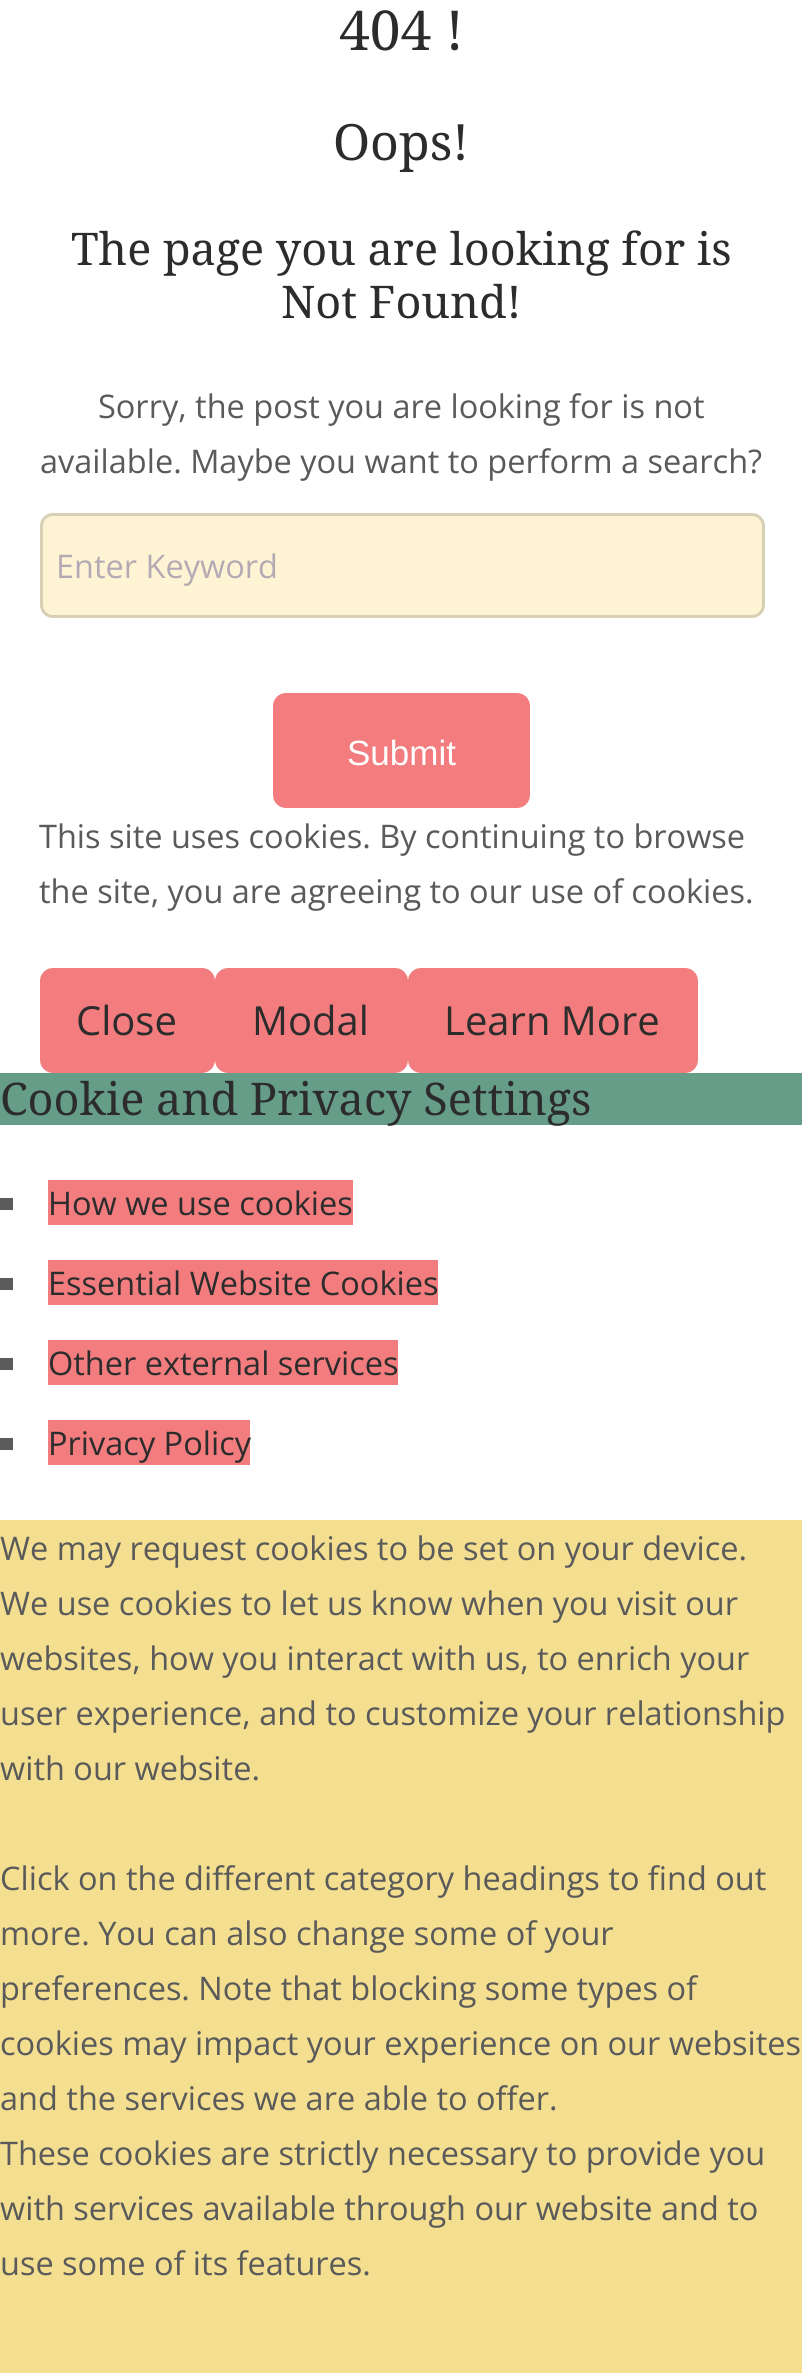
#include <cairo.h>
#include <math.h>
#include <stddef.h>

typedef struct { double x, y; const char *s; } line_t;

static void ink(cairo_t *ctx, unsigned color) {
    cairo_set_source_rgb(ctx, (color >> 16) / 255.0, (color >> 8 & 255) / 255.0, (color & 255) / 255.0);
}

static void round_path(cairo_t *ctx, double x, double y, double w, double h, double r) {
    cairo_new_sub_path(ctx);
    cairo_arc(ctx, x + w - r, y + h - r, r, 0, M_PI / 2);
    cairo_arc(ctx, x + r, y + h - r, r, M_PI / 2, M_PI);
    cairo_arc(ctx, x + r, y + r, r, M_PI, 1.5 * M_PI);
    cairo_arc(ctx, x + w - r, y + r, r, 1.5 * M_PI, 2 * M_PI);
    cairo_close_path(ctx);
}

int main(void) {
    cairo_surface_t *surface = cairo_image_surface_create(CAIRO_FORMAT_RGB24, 802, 2373);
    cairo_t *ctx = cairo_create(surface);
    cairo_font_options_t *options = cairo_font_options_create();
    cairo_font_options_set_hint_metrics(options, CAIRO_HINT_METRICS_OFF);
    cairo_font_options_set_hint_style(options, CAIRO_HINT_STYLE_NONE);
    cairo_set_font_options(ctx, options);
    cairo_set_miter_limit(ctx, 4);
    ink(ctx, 0xFFFFFF);
    cairo_paint(ctx);
    cairo_select_font_face(ctx, "Droid Serif", CAIRO_FONT_SLANT_NORMAL, CAIRO_FONT_WEIGHT_NORMAL);
    cairo_set_font_size(ctx, 55);
    ink(ctx, 0x2C2C2C);
    cairo_move_to(ctx, 339, 50);
    cairo_show_text(ctx, "404 !");
    cairo_set_font_size(ctx, 50);
    cairo_move_to(ctx, 333, 160);
    cairo_show_text(ctx, "Oops!");
    cairo_set_font_size(ctx, 45);
    cairo_move_to(ctx, 71, 265);
    cairo_show_text(ctx, "The page you are looking for is");
    cairo_move_to(ctx, 281, 318);
    cairo_show_text(ctx, "Not Found!");
    cairo_select_font_face(ctx, "Open Sans", CAIRO_FONT_SLANT_NORMAL, CAIRO_FONT_WEIGHT_NORMAL);
    cairo_set_font_size(ctx, 32.5);
    ink(ctx, 0x5A5A5A);
    cairo_move_to(ctx, 98, 418);
    cairo_show_text(ctx, "Sorry, the post you are looking for is not");
    cairo_move_to(ctx, 40, 473);
    cairo_show_text(ctx, "available. Maybe you want to perform a search?");
    ink(ctx, 0xFEF4D4);
    round_path(ctx, 40, 513, 725, 105, 13);
    cairo_fill(ctx);
    round_path(ctx, 41.5, 514.5, 722, 102, 11.5);
    cairo_set_source_rgba(ctx, 0, 0, 0, 0.15);
    cairo_set_line_width(ctx, 3);
    cairo_stroke(ctx);
    ink(ctx, 0xB4AAB4);
    cairo_move_to(ctx, 56, 578);
    cairo_show_text(ctx, "Enter Keyword");
    ink(ctx, 0xF27C7E);
    round_path(ctx, 273, 693, 257, 115, 13);
    cairo_fill(ctx);
    cairo_select_font_face(ctx, "Liberation Sans", CAIRO_FONT_SLANT_NORMAL, CAIRO_FONT_WEIGHT_NORMAL);
    cairo_set_font_size(ctx, 35);
    ink(ctx, 0xFFFFFF);
    cairo_move_to(ctx, 347, 765);
    cairo_show_text(ctx, "Submit");
    cairo_select_font_face(ctx, "Open Sans", CAIRO_FONT_SLANT_NORMAL, CAIRO_FONT_WEIGHT_NORMAL);
    cairo_set_font_size(ctx, 32.5);
    ink(ctx, 0x5A5A5A);
    cairo_move_to(ctx, 39, 848);
    cairo_show_text(ctx, "This site uses cookies. By continuing to browse");
    cairo_move_to(ctx, 39, 903);
    cairo_show_text(ctx, "the site, you are agreeing to our use of cookies.");
    ink(ctx, 0xF27C7E);
    round_path(ctx, 40, 968, 175, 105, 13);
    cairo_fill(ctx);
    cairo_set_font_size(ctx, 40);
    ink(ctx, 0x2C2C2C);
    cairo_move_to(ctx, 76, 1035);
    cairo_show_text(ctx, "Close");
    ink(ctx, 0xF27C7E);
    round_path(ctx, 215, 968, 193, 105, 13);
    cairo_fill(ctx);
    ink(ctx, 0x2C2C2C);
    cairo_move_to(ctx, 252, 1035);
    cairo_show_text(ctx, "Modal");
    ink(ctx, 0xF27C7E);
    round_path(ctx, 408, 968, 290, 105, 13);
    cairo_fill(ctx);
    ink(ctx, 0x2C2C2C);
    cairo_move_to(ctx, 444, 1035);
    cairo_show_text(ctx, "Learn More");
    ink(ctx, 0x669D89);
    cairo_rectangle(ctx, 0, 1073, 802, 52);
    cairo_fill(ctx);
    cairo_select_font_face(ctx, "Droid Serif", CAIRO_FONT_SLANT_NORMAL, CAIRO_FONT_WEIGHT_NORMAL);
    cairo_set_font_size(ctx, 45);
    ink(ctx, 0x2C2C2C);
    cairo_move_to(ctx, 0, 1115);
    cairo_show_text(ctx, "Cookie and Privacy Settings");
    ink(ctx, 0x5A5A5A);
    cairo_rectangle(ctx, 0, 1198, 13, 12);
    cairo_fill(ctx);
    ink(ctx, 0xF27C7E);
    cairo_rectangle(ctx, 48, 1180, 305, 45);
    cairo_fill(ctx);
    cairo_select_font_face(ctx, "Open Sans", CAIRO_FONT_SLANT_NORMAL, CAIRO_FONT_WEIGHT_NORMAL);
    cairo_set_font_size(ctx, 32.5);
    ink(ctx, 0x2C2C2C);
    cairo_move_to(ctx, 48, 1215);
    cairo_show_text(ctx, "How we use cookies");
    ink(ctx, 0x5A5A5A);
    cairo_rectangle(ctx, 0, 1278, 13, 12);
    cairo_fill(ctx);
    ink(ctx, 0xF27C7E);
    cairo_rectangle(ctx, 48, 1260, 390, 45);
    cairo_fill(ctx);
    ink(ctx, 0x2C2C2C);
    cairo_move_to(ctx, 48, 1295);
    cairo_show_text(ctx, "Essential Website Cookies");
    ink(ctx, 0x5A5A5A);
    cairo_rectangle(ctx, 0, 1358, 13, 12);
    cairo_fill(ctx);
    ink(ctx, 0xF27C7E);
    cairo_rectangle(ctx, 48, 1340, 350, 45);
    cairo_fill(ctx);
    ink(ctx, 0x2C2C2C);
    cairo_move_to(ctx, 48, 1375);
    cairo_show_text(ctx, "Other external services");
    ink(ctx, 0x5A5A5A);
    cairo_rectangle(ctx, 0, 1438, 13, 12);
    cairo_fill(ctx);
    ink(ctx, 0xF27C7E);
    cairo_rectangle(ctx, 48, 1420, 202, 45);
    cairo_fill(ctx);
    ink(ctx, 0x2C2C2C);
    cairo_move_to(ctx, 48, 1455);
    cairo_show_text(ctx, "Privacy Policy");
    ink(ctx, 0xF4DF90);
    cairo_rectangle(ctx, 0, 1520, 802, 853);
    cairo_fill(ctx);
    ink(ctx, 0x5A5A5A);
    {
        static const line_t items[] = {
            {0, 1560, "We may request cookies to be set on your device."},
            {0, 1615, "We use cookies to let us know when you visit our"},
            {0, 1670, "websites, how you interact with us, to enrich your"},
            {0, 1725, "user experience, and to customize your relationship"},
            {0, 1780, "with our website."},
            {0, 1890, "Click on the different category headings to find out"},
            {0, 1945, "more. You can also change some of your"},
            {0, 2000, "preferences. Note that blocking some types of"},
            {0, 2055, "cookies may impact your experience on our websites"},
            {0, 2110, "and the services we are able to offer."},
            {0, 2165, "These cookies are strictly necessary to provide you"},
            {0, 2220, "with services available through our website and to"},
            {0, 2275, "use some of its features."},
        };
        for (size_t i = 0; i < sizeof items / sizeof *items; i++) {
            cairo_move_to(ctx, items[i].x, items[i].y);
            cairo_show_text(ctx, items[i].s);
        }
    }
    cairo_surface_write_to_png(surface, "image.png");
    cairo_font_options_destroy(options);
    cairo_destroy(ctx);
    cairo_surface_destroy(surface);
    return 0;
}
